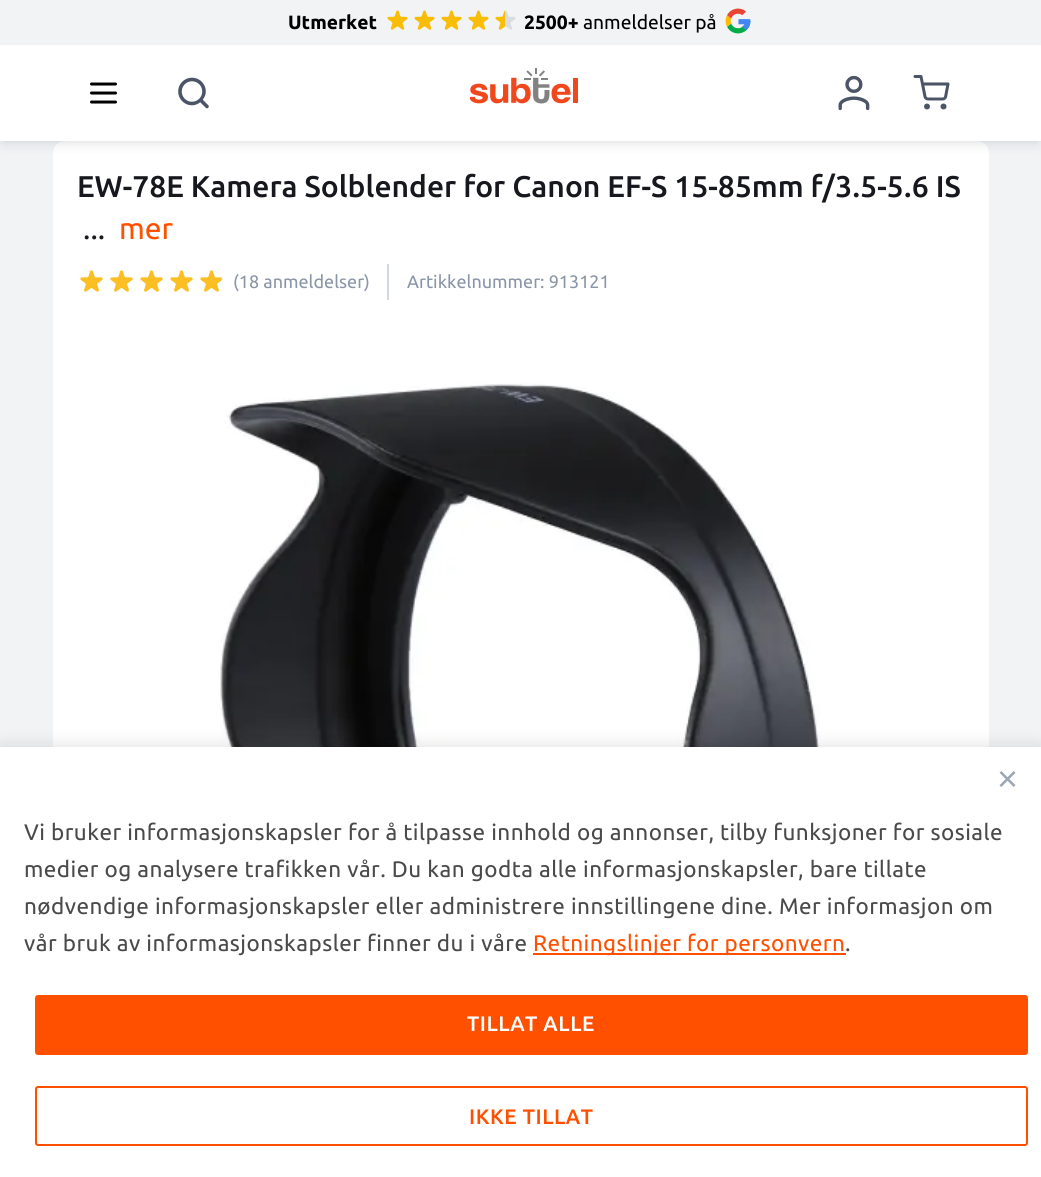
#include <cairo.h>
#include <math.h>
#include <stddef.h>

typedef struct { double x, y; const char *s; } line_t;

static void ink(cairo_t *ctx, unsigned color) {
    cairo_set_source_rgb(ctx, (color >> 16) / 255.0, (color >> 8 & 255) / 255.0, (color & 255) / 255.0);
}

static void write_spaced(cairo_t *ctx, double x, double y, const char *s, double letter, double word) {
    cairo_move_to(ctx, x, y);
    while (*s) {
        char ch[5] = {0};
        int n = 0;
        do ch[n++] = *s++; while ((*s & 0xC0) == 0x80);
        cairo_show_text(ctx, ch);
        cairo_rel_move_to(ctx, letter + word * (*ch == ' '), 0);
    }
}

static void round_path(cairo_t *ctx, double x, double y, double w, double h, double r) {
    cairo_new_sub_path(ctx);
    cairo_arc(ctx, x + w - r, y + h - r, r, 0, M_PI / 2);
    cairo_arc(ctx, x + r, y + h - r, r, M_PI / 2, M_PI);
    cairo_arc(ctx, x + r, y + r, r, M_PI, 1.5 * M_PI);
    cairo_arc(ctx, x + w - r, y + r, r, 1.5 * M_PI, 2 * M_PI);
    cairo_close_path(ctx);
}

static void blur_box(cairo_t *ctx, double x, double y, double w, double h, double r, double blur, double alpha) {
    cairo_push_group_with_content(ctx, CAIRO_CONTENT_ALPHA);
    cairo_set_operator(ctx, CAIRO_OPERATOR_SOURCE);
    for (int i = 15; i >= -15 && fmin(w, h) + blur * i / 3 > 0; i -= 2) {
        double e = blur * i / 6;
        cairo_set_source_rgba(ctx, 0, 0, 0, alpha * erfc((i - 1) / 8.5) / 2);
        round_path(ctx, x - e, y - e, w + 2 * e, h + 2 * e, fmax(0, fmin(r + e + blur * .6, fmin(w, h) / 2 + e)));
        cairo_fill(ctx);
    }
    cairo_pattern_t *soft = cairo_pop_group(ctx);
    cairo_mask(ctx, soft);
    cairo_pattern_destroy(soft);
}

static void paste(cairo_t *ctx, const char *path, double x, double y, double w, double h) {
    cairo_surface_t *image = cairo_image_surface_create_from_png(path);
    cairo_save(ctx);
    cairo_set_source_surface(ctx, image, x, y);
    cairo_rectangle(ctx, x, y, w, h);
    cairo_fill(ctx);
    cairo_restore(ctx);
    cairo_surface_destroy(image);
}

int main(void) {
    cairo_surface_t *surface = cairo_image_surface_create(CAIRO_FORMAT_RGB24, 1041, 1177);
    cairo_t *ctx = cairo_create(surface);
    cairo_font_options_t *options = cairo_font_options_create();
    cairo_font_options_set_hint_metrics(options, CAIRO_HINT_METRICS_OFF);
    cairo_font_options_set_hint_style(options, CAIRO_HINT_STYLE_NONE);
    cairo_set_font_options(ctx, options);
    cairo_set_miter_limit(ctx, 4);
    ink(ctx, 0xF1F3F5);
    cairo_paint(ctx);
    cairo_select_font_face(ctx, "Ubuntu", CAIRO_FONT_SLANT_NORMAL, CAIRO_FONT_WEIGHT_BOLD);
    cairo_set_font_size(ctx, 19.25);
    ink(ctx, 0x000000);
    cairo_move_to(ctx, 288, 29);
    cairo_show_text(ctx, "Utmerket");
    paste(ctx, "media/1.png", 387, 10, 21, 20);
    paste(ctx, "media/1.png", 414, 10, 21, 20);
    paste(ctx, "media/1.png", 441, 10, 21, 20);
    paste(ctx, "media/1.png", 468, 10, 21, 20);
    paste(ctx, "media/2.png", 495, 10, 21, 20);
    cairo_move_to(ctx, 524, 29);
    cairo_show_text(ctx, "2500+");
    cairo_select_font_face(ctx, "Ubuntu", CAIRO_FONT_SLANT_NORMAL, CAIRO_FONT_WEIGHT_NORMAL);
    cairo_move_to(ctx, 583, 29);
    cairo_show_text(ctx, "anmeldelser på");
    paste(ctx, "media/3.png", 725, 8, 26, 26);
    ink(ctx, 0xFFFFFF);
    round_path(ctx, 53, 141, 936, 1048, 12);
    cairo_fill(ctx);
    ink(ctx, 0x101828);
    blur_box(ctx, 3, 54, 1035, 90, 0, 6, 0.1);
    blur_box(ctx, 3, 51, 1035, 90, 0, 3, 0.06);
    ink(ctx, 0xFFFFFF);
    cairo_rectangle(ctx, 0, 45, 1041, 96);
    cairo_fill(ctx);
    cairo_new_path(ctx);
    cairo_move_to(ctx, 91.5, 84);
    cairo_line_to(ctx, 115.5, 84);
    cairo_move_to(ctx, 91.5, 93);
    cairo_line_to(ctx, 115.5, 93);
    cairo_move_to(ctx, 91.5, 102);
    cairo_line_to(ctx, 115.5, 102);
    ink(ctx, 0x000000);
    cairo_set_line_width(ctx, 3);
    cairo_set_line_cap(ctx, CAIRO_LINE_CAP_ROUND);
    cairo_set_line_join(ctx, CAIRO_LINE_JOIN_ROUND);
    cairo_stroke(ctx);
    paste(ctx, "media/4.png", 178, 77, 31, 32);
    paste(ctx, "media/5.png", 470, 68, 108, 36);
    paste(ctx, "media/6.png", 838, 75, 32, 36);
    paste(ctx, "media/7.png", 913, 75, 37, 35);
    cairo_select_font_face(ctx, "Ubuntu Medium", CAIRO_FONT_SLANT_NORMAL, CAIRO_FONT_WEIGHT_NORMAL);
    cairo_set_font_size(ctx, 30);
    ink(ctx, 0x16181D);
    cairo_move_to(ctx, 77, 197);
    cairo_show_text(ctx, "EW-78E Kamera Solblender for Canon EF-S 15-85mm f/3.5-5.6 IS");
    cairo_select_font_face(ctx, "Ubuntu", CAIRO_FONT_SLANT_NORMAL, CAIRO_FONT_WEIGHT_NORMAL);
    cairo_move_to(ctx, 83, 239);
    cairo_show_text(ctx, "...");
    ink(ctx, 0xFF5000);
    cairo_move_to(ctx, 119, 239);
    cairo_show_text(ctx, "mer");
    paste(ctx, "media/8.png", 80, 270, 23, 22);
    paste(ctx, "media/8.png", 110, 270, 23, 22);
    paste(ctx, "media/8.png", 140, 270, 23, 22);
    paste(ctx, "media/8.png", 170, 270, 23, 22);
    paste(ctx, "media/9.png", 200, 270, 23, 22);
    cairo_set_font_size(ctx, 18);
    ink(ctx, 0x8A96A8);
    cairo_move_to(ctx, 233, 288);
    cairo_show_text(ctx, "(18 anmeldelser)");
    ink(ctx, 0xD3D7DF);
    cairo_rectangle(ctx, 387, 264, 2, 36);
    cairo_fill(ctx);
    ink(ctx, 0x8A96A8);
    cairo_move_to(ctx, 407, 288);
    cairo_show_text(ctx, "Artikkelnummer: 913121");
    paste(ctx, "media/10.png", 220, 382, 601, 365);
    ink(ctx, 0x000000);
    blur_box(ctx, 0, 744, 1041, 431, 0, 7.5, 0.1);
    ink(ctx, 0xFFFFFF);
    cairo_rectangle(ctx, 0, 747, 1041, 430);
    cairo_fill(ctx);
    cairo_select_font_face(ctx, "Liberation Sans", CAIRO_FONT_SLANT_NORMAL, CAIRO_FONT_WEIGHT_NORMAL);
    cairo_set_font_size(ctx, 36);
    ink(ctx, 0x9CA6B5);
    cairo_move_to(ctx, 997, 791);
    cairo_show_text(ctx, "×");
    cairo_select_font_face(ctx, "Ubuntu", CAIRO_FONT_SLANT_NORMAL, CAIRO_FONT_WEIGHT_NORMAL);
    cairo_set_font_size(ctx, 22.5);
    ink(ctx, 0x4A4A4A);
    {
        static const line_t items[] = {
            {24, 840, "Vi bruker informasjonskapsler for å tilpasse innhold og annonser, tilby funksjoner for sosiale"},
            {24, 877, "medier og analysere trafikken vår. Du kan godta alle informasjonskapsler, bare tillate"},
            {24, 914, "nødvendige informasjonskapsler eller administrere innstillingene dine. Mer informasjon om"},
            {24, 951, "vår bruk av informasjonskapsler finner du i våre"},
        };
        for (size_t i = 0; i < sizeof items / sizeof *items; i++) {
            write_spaced(ctx, items[i].x, items[i].y, items[i].s, 0.45, 0);
        }
    }
    ink(ctx, 0xFF5000);
    cairo_rectangle(ctx, 533, 953, 313, 2);
    cairo_fill(ctx);
    write_spaced(ctx, 533, 951, "Retningslinjer for personvern", 0.45, 0);
    ink(ctx, 0x4A4A4A);
    write_spaced(ctx, 845, 951, ".", 0.45, 0);
    ink(ctx, 0xFF5000);
    round_path(ctx, 36, 996, 991, 58, 2);
    cairo_fill_preserve(ctx);
    cairo_set_line_width(ctx, 2);
    cairo_set_line_cap(ctx, CAIRO_LINE_CAP_BUTT);
    cairo_set_line_join(ctx, CAIRO_LINE_JOIN_MITER);
    cairo_stroke(ctx);
    cairo_select_font_face(ctx, "Ubuntu Medium", CAIRO_FONT_SLANT_NORMAL, CAIRO_FONT_WEIGHT_NORMAL);
    cairo_set_font_size(ctx, 21);
    ink(ctx, 0xFFFFFF);
    write_spaced(ctx, 467, 1031, "TILLAT ALLE", 0.6, 0);
    round_path(ctx, 36, 1087, 991, 58, 2);
    ink(ctx, 0xFF5000);
    cairo_stroke(ctx);
    write_spaced(ctx, 469, 1124, "IKKE TILLAT", 0.6, 0);
    cairo_surface_write_to_png(surface, "image.png");
    cairo_font_options_destroy(options);
    cairo_destroy(ctx);
    cairo_surface_destroy(surface);
    return 0;
}
